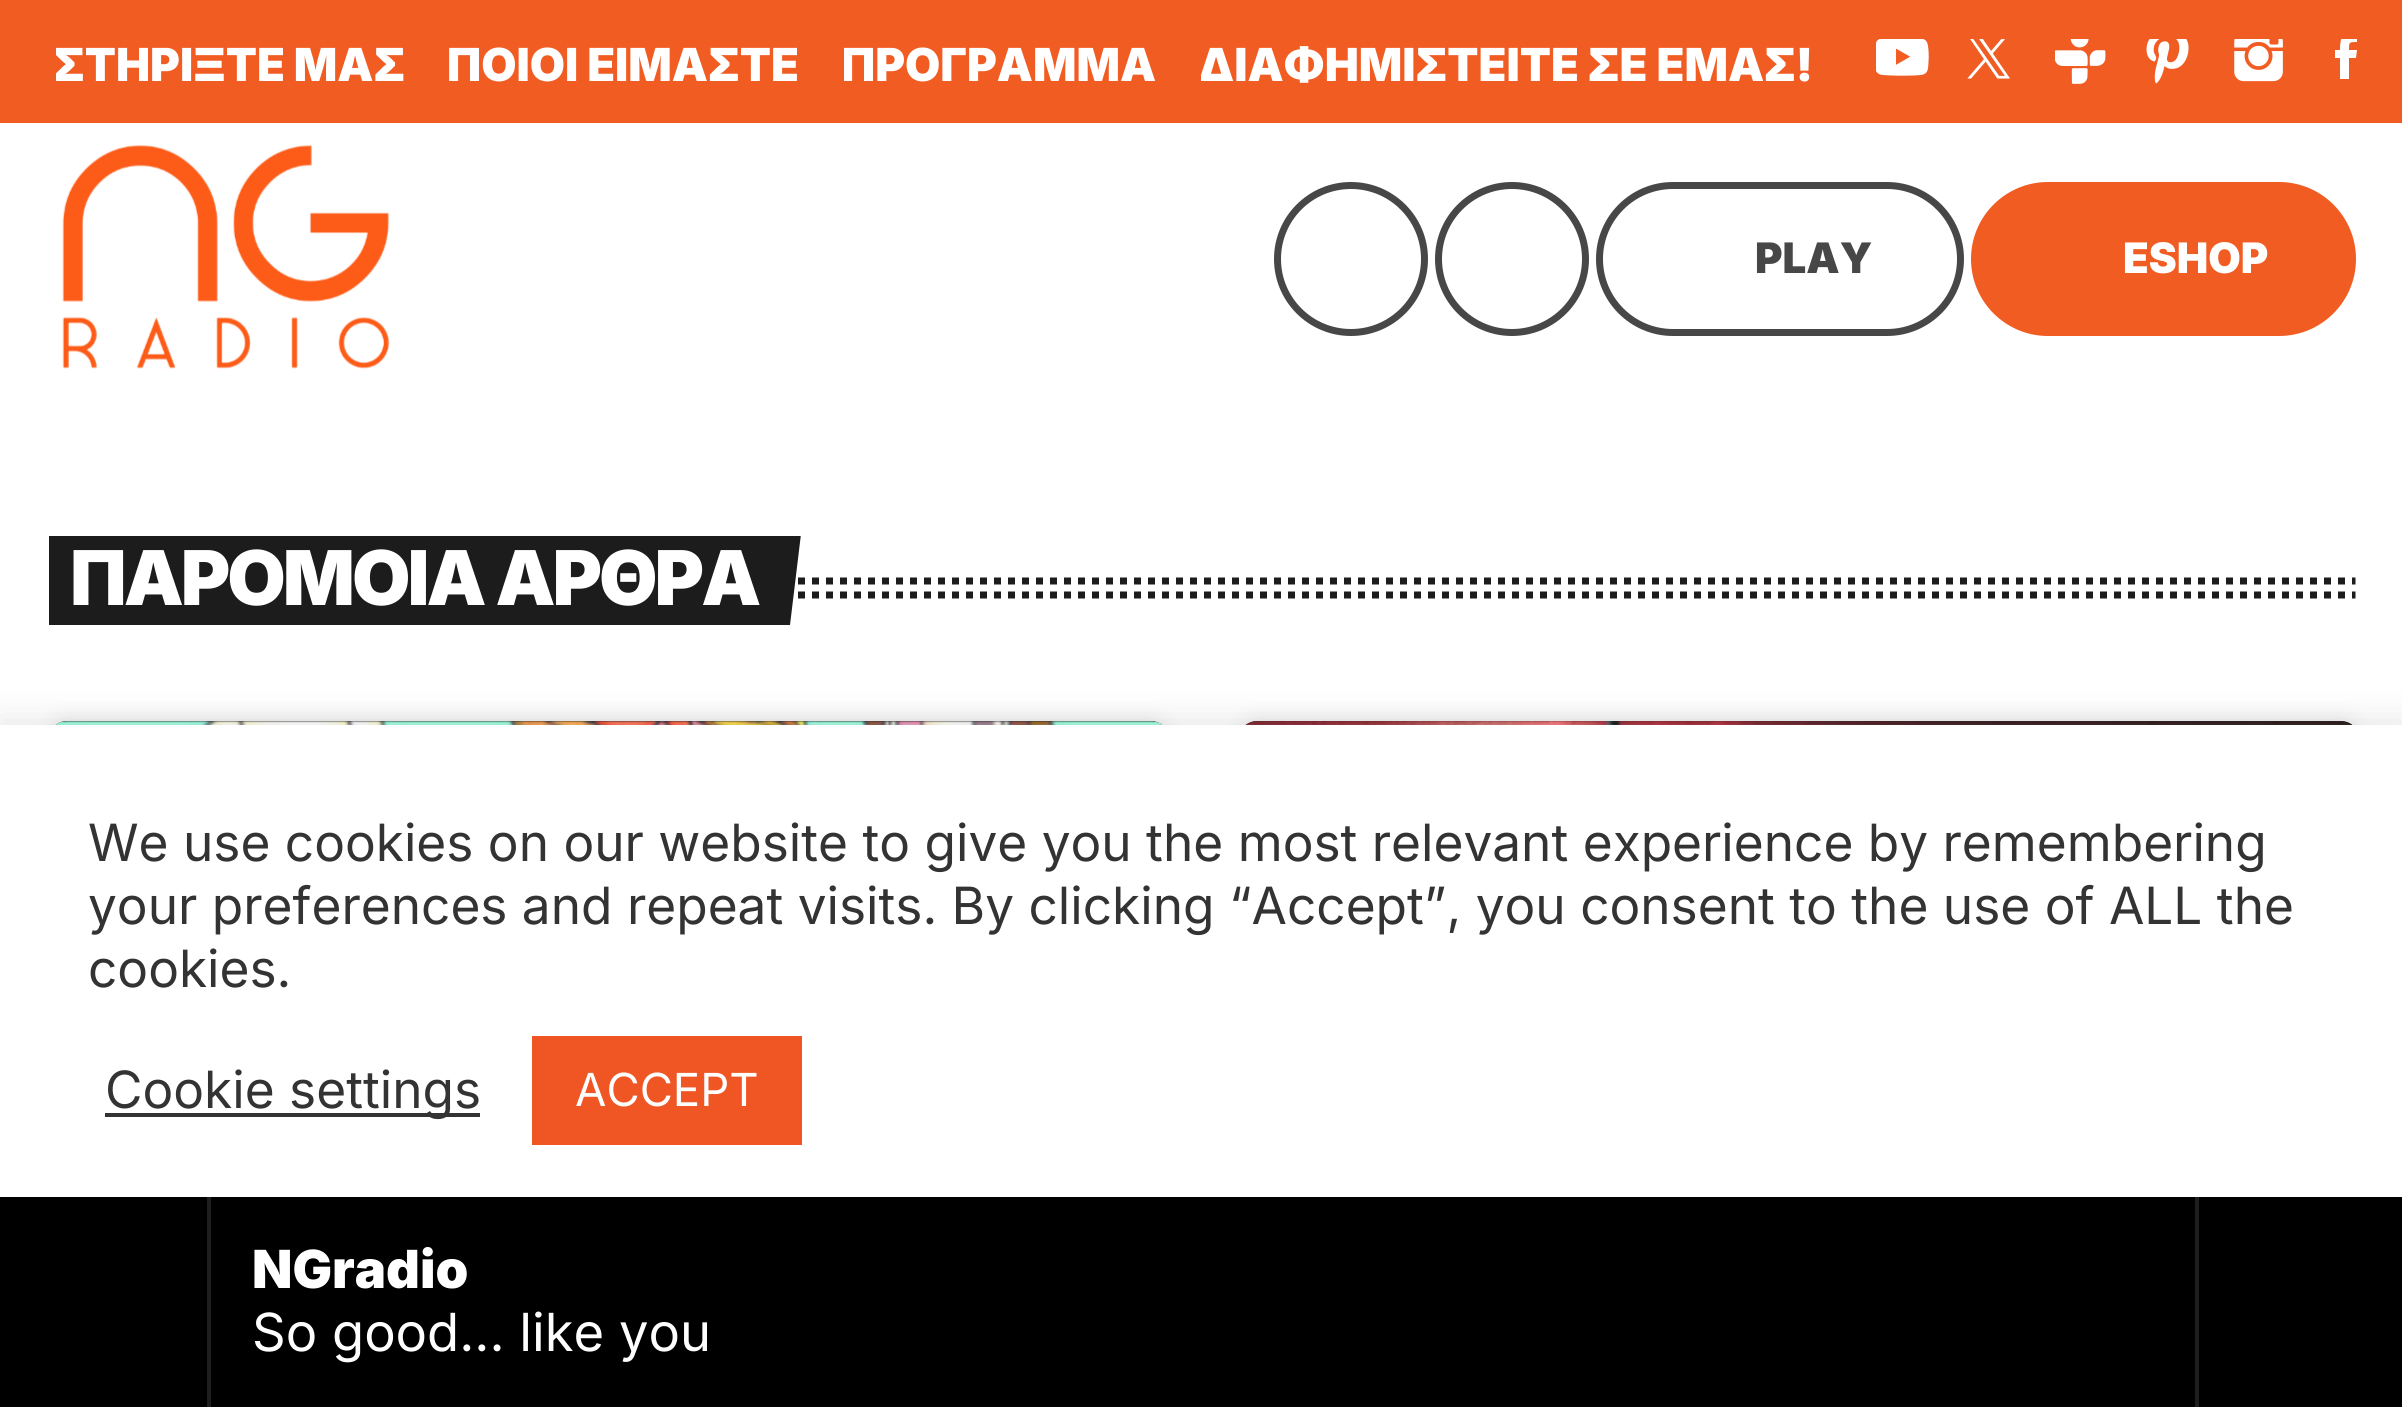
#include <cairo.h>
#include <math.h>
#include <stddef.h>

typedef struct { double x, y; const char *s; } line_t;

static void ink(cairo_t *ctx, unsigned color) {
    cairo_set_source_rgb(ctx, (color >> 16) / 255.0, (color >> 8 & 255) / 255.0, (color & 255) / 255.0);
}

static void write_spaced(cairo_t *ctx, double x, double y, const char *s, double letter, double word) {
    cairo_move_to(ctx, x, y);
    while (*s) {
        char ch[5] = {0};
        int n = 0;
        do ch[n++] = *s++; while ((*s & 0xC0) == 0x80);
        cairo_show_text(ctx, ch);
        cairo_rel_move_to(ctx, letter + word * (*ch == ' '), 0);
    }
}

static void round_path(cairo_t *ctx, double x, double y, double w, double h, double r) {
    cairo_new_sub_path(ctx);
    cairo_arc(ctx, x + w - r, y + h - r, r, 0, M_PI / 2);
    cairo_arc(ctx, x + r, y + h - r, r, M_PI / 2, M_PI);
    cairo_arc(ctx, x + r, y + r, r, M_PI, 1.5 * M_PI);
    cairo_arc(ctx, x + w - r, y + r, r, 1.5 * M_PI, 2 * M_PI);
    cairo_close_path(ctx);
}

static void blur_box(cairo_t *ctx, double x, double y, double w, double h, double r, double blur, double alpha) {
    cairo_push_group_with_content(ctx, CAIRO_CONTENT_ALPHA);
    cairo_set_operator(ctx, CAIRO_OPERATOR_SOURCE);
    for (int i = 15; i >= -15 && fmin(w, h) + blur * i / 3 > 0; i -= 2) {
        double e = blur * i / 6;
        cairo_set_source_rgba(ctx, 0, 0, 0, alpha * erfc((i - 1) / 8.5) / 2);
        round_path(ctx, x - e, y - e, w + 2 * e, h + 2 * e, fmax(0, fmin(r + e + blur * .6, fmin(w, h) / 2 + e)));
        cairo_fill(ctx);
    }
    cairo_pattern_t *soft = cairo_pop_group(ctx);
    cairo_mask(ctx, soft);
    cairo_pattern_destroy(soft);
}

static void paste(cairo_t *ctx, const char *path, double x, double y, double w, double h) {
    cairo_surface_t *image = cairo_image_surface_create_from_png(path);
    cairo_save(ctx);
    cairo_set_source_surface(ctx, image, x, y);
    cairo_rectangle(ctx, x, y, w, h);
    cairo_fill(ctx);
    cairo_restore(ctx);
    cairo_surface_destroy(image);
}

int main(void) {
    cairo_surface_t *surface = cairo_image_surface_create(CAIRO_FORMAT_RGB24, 2402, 1407);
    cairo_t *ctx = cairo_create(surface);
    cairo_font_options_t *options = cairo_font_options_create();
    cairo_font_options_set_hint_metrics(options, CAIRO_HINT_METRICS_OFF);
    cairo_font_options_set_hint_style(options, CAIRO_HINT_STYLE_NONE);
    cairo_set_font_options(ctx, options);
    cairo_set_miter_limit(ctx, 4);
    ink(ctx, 0xFFFFFF);
    cairo_paint(ctx);
    ink(ctx, 0xF15C23);
    cairo_rectangle(ctx, 0, 0, 2402, 123);
    cairo_fill(ctx);
    cairo_save(ctx);
    cairo_rectangle(ctx, 56, 42, 350, 46);
    cairo_clip(ctx);
    cairo_select_font_face(ctx, "Inter Black", CAIRO_FONT_SLANT_NORMAL, CAIRO_FONT_WEIGHT_NORMAL);
    cairo_set_font_size(ctx, 45.5);
    ink(ctx, 0xFFFFFF);
    cairo_move_to(ctx, 53, 81);
    cairo_show_text(ctx, "ΣΤΗΡΙΞΤΕ ΜΑΣ");
    cairo_restore(ctx);
    cairo_select_font_face(ctx, "Inter Black", CAIRO_FONT_SLANT_NORMAL, CAIRO_FONT_WEIGHT_NORMAL);
    cairo_set_font_size(ctx, 45.5);
    ink(ctx, 0xFFFFFF);
    cairo_move_to(ctx, 447, 81);
    cairo_show_text(ctx, "ΠΟΙΟΙ ΕΙΜΑΣΤΕ");
    cairo_save(ctx);
    cairo_rectangle(ctx, 844, 42, 315, 46);
    cairo_clip(ctx);
    cairo_move_to(ctx, 841, 81);
    cairo_show_text(ctx, "ΠΡΟΓΡΑΜΜΑ");
    cairo_restore(ctx);
    cairo_save(ctx);
    cairo_rectangle(ctx, 1201, 42, 616, 46);
    cairo_clip(ctx);
    cairo_move_to(ctx, 1198, 81);
    cairo_show_text(ctx, "ΔΙΑΦΗΜΙΣΤΕΙΤΕ ΣΕ ΕΜΑΣ!");
    cairo_restore(ctx);
    paste(ctx, "media/1.png", 1876, 39, 53, 37);
    paste(ctx, "media/2.png", 1967, 39, 43, 40);
    paste(ctx, "media/3.png", 2055, 39, 51, 45);
    paste(ctx, "media/4.png", 2146, 39, 43, 45);
    paste(ctx, "media/5.png", 2234, 39, 49, 43);
    cairo_save(ctx);
    cairo_rectangle(ctx, 2321, 39, 56, 49);
    cairo_clip(ctx);
    cairo_new_path(ctx);
    cairo_move_to(ctx, 2356, 58);
    cairo_line_to(ctx, 2349, 58);
    cairo_line_to(ctx, 2349, 79);
    cairo_line_to(ctx, 2340, 79);
    cairo_line_to(ctx, 2340, 58);
    cairo_line_to(ctx, 2335, 58);
    cairo_line_to(ctx, 2335, 50);
    cairo_line_to(ctx, 2340, 50);
    cairo_curve_to(ctx, 2340, 35, 2343, 34, 2357, 34);
    cairo_line_to(ctx, 2357, 42);
    cairo_curve_to(ctx, 2349, 42, 2349, 42, 2349, 50);
    cairo_line_to(ctx, 2357, 50);
    cairo_close_path(ctx);
    cairo_fill(ctx);
    cairo_restore(ctx);
    paste(ctx, "media/6.png", 62, 145, 328, 224);
    cairo_arc(ctx, 1351, 259, 73.5, 0, 2 * M_PI);
    ink(ctx, 0x474747);
    cairo_set_line_width(ctx, 7);
    cairo_stroke(ctx);
    cairo_arc(ctx, 1512, 259, 73.5, 0, 2 * M_PI);
    cairo_stroke(ctx);
    round_path(ctx, 1599.5, 185.5, 361, 147, 73.5);
    cairo_stroke(ctx);
    cairo_set_font_size(ctx, 42);
    cairo_move_to(ctx, 1755, 273);
    cairo_show_text(ctx, "PLAY");
    ink(ctx, 0xF15C23);
    round_path(ctx, 1971, 182, 385, 154, 77);
    cairo_fill(ctx);
    ink(ctx, 0xFFFFFF);
    cairo_move_to(ctx, 2123, 273);
    cairo_show_text(ctx, "ESHOP");
    cairo_new_path(ctx);
    cairo_move_to(ctx, 70, 581);
    cairo_line_to(ctx, 2355.5, 581);
    ink(ctx, 0x1C1C1C);
    cairo_set_dash(ctx, (double[]){7, 7}, 2, 0);
    cairo_stroke(ctx);
    cairo_new_path(ctx);
    cairo_move_to(ctx, 70, 595);
    cairo_line_to(ctx, 2355.5, 595);
    cairo_stroke(ctx);
    cairo_save(ctx);
    cairo_rectangle(ctx, 49, 536, 763, 91);
    cairo_clip(ctx);
    cairo_new_path(ctx);
    cairo_move_to(ctx, 32, 534);
    cairo_line_to(ctx, 801, 534);
    cairo_line_to(ctx, 790, 625);
    cairo_line_to(ctx, 21, 625);
    cairo_close_path(ctx);
    cairo_fill(ctx);
    cairo_restore(ctx);
    cairo_set_font_size(ctx, 75.5);
    ink(ctx, 0xFFFFFF);
    write_spaced(ctx, 70, 605, "ΠΑΡΟΜΟΙΑ ΑΡΘΡΑ", -3, 0);
    ink(ctx, 0x000000);
    blur_box(ctx, 49, 721, 1120, 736, 18, 10.5, 0.12);
    ink(ctx, 0x111111);
    cairo_new_path(ctx);
    cairo_move_to(ctx, 67, 721);
    cairo_line_to(ctx, 1151, 721);
    cairo_curve_to(ctx, 1161, 721, 1169, 729, 1169, 739);
    cairo_line_to(ctx, 1169, 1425);
    cairo_line_to(ctx, 49, 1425);
    cairo_line_to(ctx, 49, 739);
    cairo_curve_to(ctx, 49, 729, 57, 721, 67, 721);
    cairo_close_path(ctx);
    cairo_fill(ctx);
    paste(ctx, "media/7.png", 56, 721, 1106, 4);
    ink(ctx, 0x000000);
    blur_box(ctx, 1239, 721, 1120, 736, 18, 10.5, 0.12);
    ink(ctx, 0x111111);
    cairo_new_path(ctx);
    cairo_move_to(ctx, 1257, 721);
    cairo_line_to(ctx, 2341, 721);
    cairo_curve_to(ctx, 2351, 721, 2359, 729, 2359, 739);
    cairo_line_to(ctx, 2359, 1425);
    cairo_line_to(ctx, 1239, 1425);
    cairo_line_to(ctx, 1239, 739);
    cairo_curve_to(ctx, 1239, 729, 1247, 721, 1257, 721);
    cairo_close_path(ctx);
    cairo_fill(ctx);
    paste(ctx, "media/8.png", 1246, 721, 1106, 4);
    ink(ctx, 0xACABAB);
    blur_box(ctx, 0, 721, 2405, 683, 0, 17.5, 0.3);
    ink(ctx, 0x000000);
    cairo_rectangle(ctx, 0, 1197, 2402, 210);
    cairo_fill(ctx);
    ink(ctx, 0x1E1E1E);
    cairo_rectangle(ctx, 207, 1197, 4, 210);
    cairo_fill(ctx);
    cairo_set_font_size(ctx, 52.5);
    ink(ctx, 0xFFFFFF);
    cairo_move_to(ctx, 252, 1288);
    cairo_show_text(ctx, "NGradio");
    cairo_select_font_face(ctx, "Inter", CAIRO_FONT_SLANT_NORMAL, CAIRO_FONT_WEIGHT_NORMAL);
    cairo_move_to(ctx, 252, 1351);
    cairo_show_text(ctx, "So good... like you");
    ink(ctx, 0x1E1E1E);
    cairo_rectangle(ctx, 2195, 1197, 4, 210);
    cairo_fill(ctx);
    ink(ctx, 0xFFFFFF);
    cairo_rectangle(ctx, 0, 725, 2402, 472);
    cairo_fill(ctx);
    cairo_set_font_size(ctx, 51.35);
    ink(ctx, 0x333333);
    {
        static const line_t items[] = {
            {88, 861, "We use cookies on our website to give you the most relevant experience by remembering"},
            {88, 924, "your preferences and repeat visits. By clicking “Accept”, you consent to the use of ALL the"},
            {88, 987, "cookies."},
        };
        for (size_t i = 0; i < sizeof items / sizeof *items; i++) {
            cairo_move_to(ctx, items[i].x, items[i].y);
            cairo_show_text(ctx, items[i].s);
        }
    }
    cairo_rectangle(ctx, 105, 1113, 375, 4);
    cairo_fill(ctx);
    cairo_move_to(ctx, 105, 1108);
    cairo_show_text(ctx, "Cookie settings");
    ink(ctx, 0xEF5623);
    cairo_rectangle(ctx, 532, 1036, 270, 109);
    cairo_fill(ctx);
    cairo_set_font_size(ctx, 45.5);
    ink(ctx, 0xFFFFFF);
    cairo_move_to(ctx, 575, 1106);
    cairo_show_text(ctx, "ACCEPT");
    cairo_surface_write_to_png(surface, "image.png");
    cairo_font_options_destroy(options);
    cairo_destroy(ctx);
    cairo_surface_destroy(surface);
    return 0;
}
